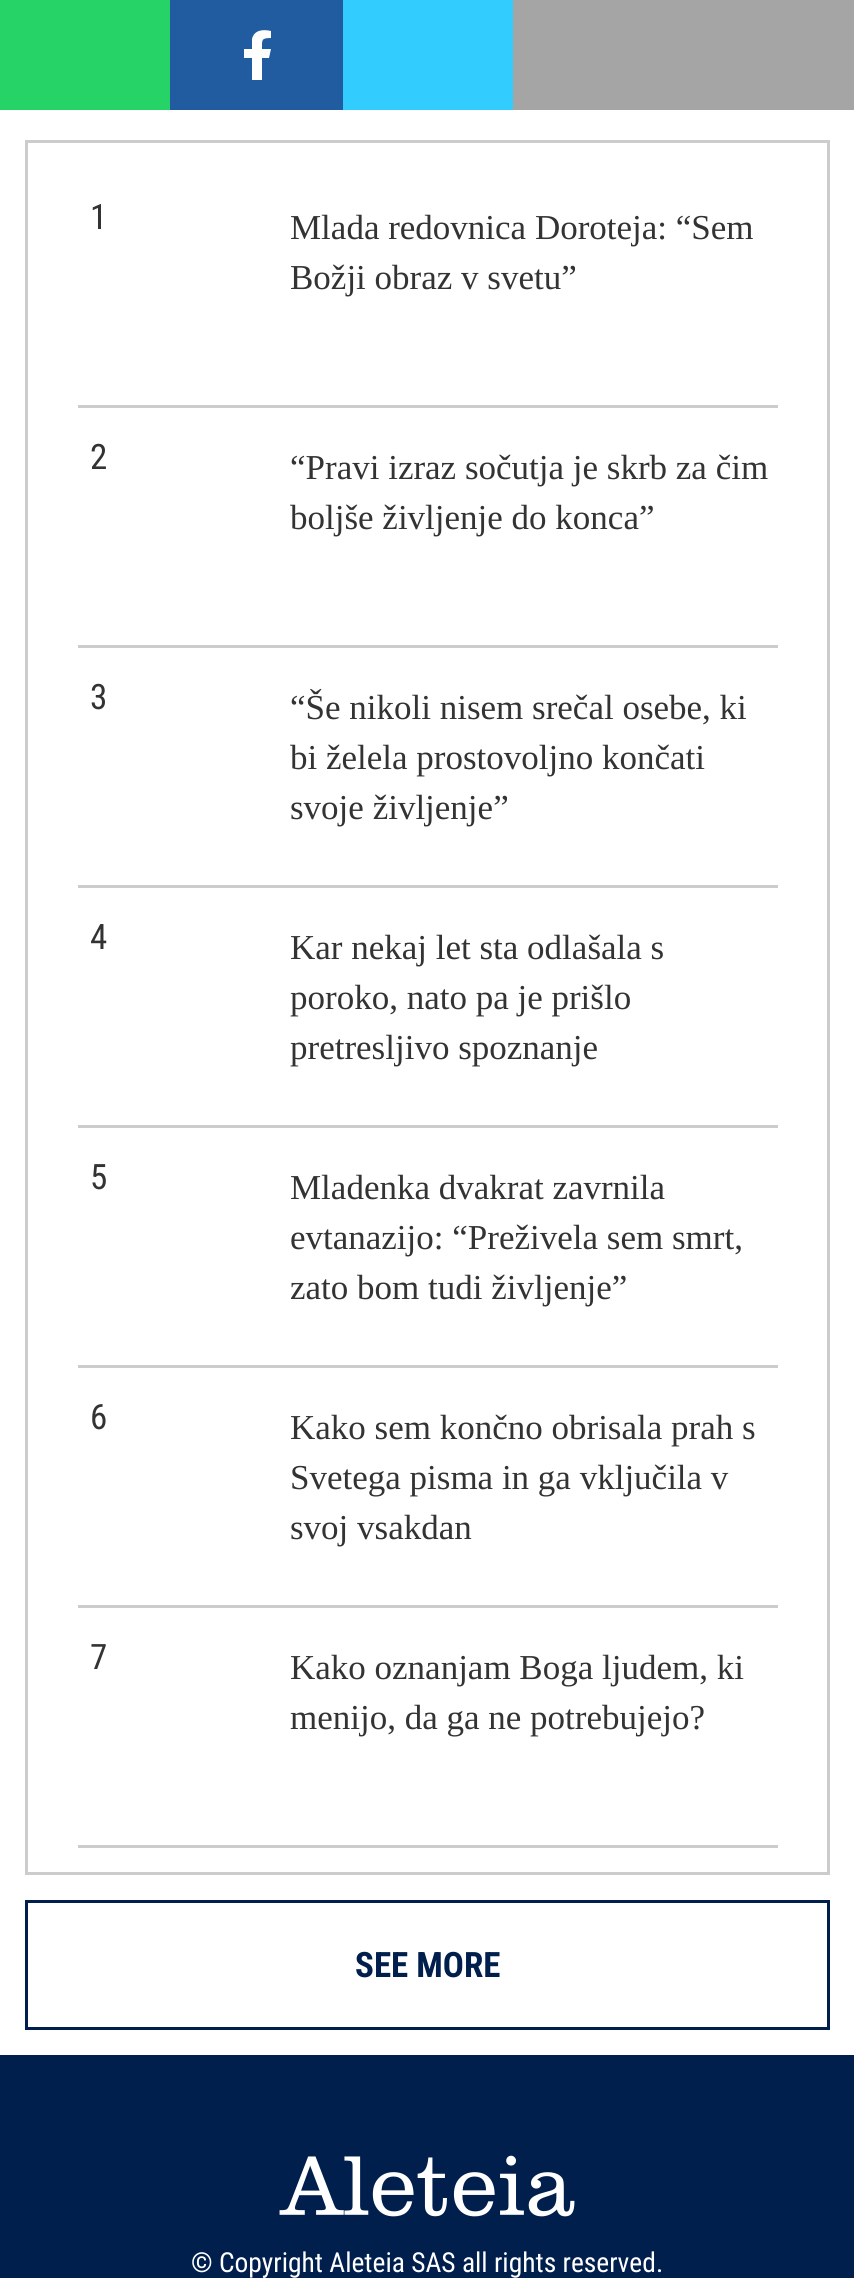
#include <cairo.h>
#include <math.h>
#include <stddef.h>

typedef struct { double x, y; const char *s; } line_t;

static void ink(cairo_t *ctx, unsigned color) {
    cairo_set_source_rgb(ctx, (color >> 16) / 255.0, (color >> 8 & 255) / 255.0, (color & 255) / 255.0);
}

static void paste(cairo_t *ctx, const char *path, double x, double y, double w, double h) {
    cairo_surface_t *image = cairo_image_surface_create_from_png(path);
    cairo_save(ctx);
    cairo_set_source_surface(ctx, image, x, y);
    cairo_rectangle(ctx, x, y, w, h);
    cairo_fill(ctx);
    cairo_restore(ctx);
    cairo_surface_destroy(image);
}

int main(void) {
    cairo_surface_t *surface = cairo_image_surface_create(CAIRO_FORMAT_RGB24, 854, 2278);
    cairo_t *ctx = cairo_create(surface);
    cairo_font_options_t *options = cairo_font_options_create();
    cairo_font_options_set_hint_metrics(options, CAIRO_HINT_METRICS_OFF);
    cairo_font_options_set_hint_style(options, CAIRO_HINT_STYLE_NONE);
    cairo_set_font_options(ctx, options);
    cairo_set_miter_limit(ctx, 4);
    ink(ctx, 0xFFFFFF);
    cairo_paint(ctx);
    ink(ctx, 0x25D366);
    cairo_rectangle(ctx, 0, 0, 170, 110);
    cairo_fill(ctx);
    ink(ctx, 0x225CA0);
    cairo_rectangle(ctx, 170, 0, 173, 110);
    cairo_fill(ctx);
    ink(ctx, 0xFFFFFF);
    cairo_new_path(ctx);
    cairo_move_to(ctx, 269, 58);
    cairo_line_to(ctx, 271, 49);
    cairo_line_to(ctx, 262, 49);
    cairo_curve_to(ctx, 262, 40, 261, 38, 271, 38);
    cairo_line_to(ctx, 271, 31);
    cairo_curve_to(ctx, 263, 29, 254, 30, 252, 39);
    cairo_line_to(ctx, 252, 49);
    cairo_line_to(ctx, 244, 49);
    cairo_line_to(ctx, 244, 58);
    cairo_line_to(ctx, 252, 58);
    cairo_line_to(ctx, 252, 80);
    cairo_line_to(ctx, 262, 80);
    cairo_line_to(ctx, 262, 58);
    cairo_close_path(ctx);
    cairo_fill(ctx);
    ink(ctx, 0x33CCFF);
    cairo_rectangle(ctx, 343, 0, 170, 110);
    cairo_fill(ctx);
    ink(ctx, 0xA5A5A5);
    cairo_rectangle(ctx, 513, 0, 341, 110);
    cairo_fill(ctx);
    cairo_rectangle(ctx, 26.5, 141.5, 802, 1732);
    ink(ctx, 0xCCCCCC);
    cairo_set_line_width(ctx, 3);
    cairo_stroke(ctx);
    cairo_rectangle(ctx, 78, 405, 700, 3);
    cairo_fill(ctx);
    cairo_select_font_face(ctx, "Roboto Condensed", CAIRO_FONT_SLANT_NORMAL, CAIRO_FONT_WEIGHT_NORMAL);
    cairo_set_font_size(ctx, 35);
    ink(ctx, 0x333333);
    cairo_move_to(ctx, 90, 229);
    cairo_show_text(ctx, "1");
    cairo_select_font_face(ctx, "Liberation Serif", CAIRO_FONT_SLANT_NORMAL, CAIRO_FONT_WEIGHT_NORMAL);
    cairo_move_to(ctx, 290, 239);
    cairo_show_text(ctx, "Mlada redovnica Doroteja: “Sem");
    cairo_move_to(ctx, 290, 289);
    cairo_show_text(ctx, "Božji obraz v svetu”");
    ink(ctx, 0xCCCCCC);
    cairo_rectangle(ctx, 78, 645, 700, 3);
    cairo_fill(ctx);
    cairo_select_font_face(ctx, "Roboto Condensed", CAIRO_FONT_SLANT_NORMAL, CAIRO_FONT_WEIGHT_NORMAL);
    ink(ctx, 0x333333);
    cairo_move_to(ctx, 90, 469);
    cairo_show_text(ctx, "2");
    cairo_select_font_face(ctx, "Liberation Serif", CAIRO_FONT_SLANT_NORMAL, CAIRO_FONT_WEIGHT_NORMAL);
    cairo_move_to(ctx, 290, 479);
    cairo_show_text(ctx, "“Pravi izraz sočutja je skrb za čim");
    cairo_move_to(ctx, 290, 529);
    cairo_show_text(ctx, "boljše življenje do konca”");
    ink(ctx, 0xCCCCCC);
    cairo_rectangle(ctx, 78, 885, 700, 3);
    cairo_fill(ctx);
    cairo_select_font_face(ctx, "Roboto Condensed", CAIRO_FONT_SLANT_NORMAL, CAIRO_FONT_WEIGHT_NORMAL);
    ink(ctx, 0x333333);
    cairo_move_to(ctx, 90, 709);
    cairo_show_text(ctx, "3");
    cairo_select_font_face(ctx, "Liberation Serif", CAIRO_FONT_SLANT_NORMAL, CAIRO_FONT_WEIGHT_NORMAL);
    {
        static const line_t items[] = {
            {290, 719, "“Še nikoli nisem srečal osebe, ki"},
            {290, 769, "bi želela prostovoljno končati"},
            {290, 819, "svoje življenje”"},
        };
        for (size_t i = 0; i < sizeof items / sizeof *items; i++) {
            cairo_move_to(ctx, items[i].x, items[i].y);
            cairo_show_text(ctx, items[i].s);
        }
    }
    ink(ctx, 0xCCCCCC);
    cairo_rectangle(ctx, 78, 1125, 700, 3);
    cairo_fill(ctx);
    cairo_select_font_face(ctx, "Roboto Condensed", CAIRO_FONT_SLANT_NORMAL, CAIRO_FONT_WEIGHT_NORMAL);
    ink(ctx, 0x333333);
    cairo_move_to(ctx, 90, 949);
    cairo_show_text(ctx, "4");
    cairo_select_font_face(ctx, "Liberation Serif", CAIRO_FONT_SLANT_NORMAL, CAIRO_FONT_WEIGHT_NORMAL);
    {
        static const line_t items[] = {
            {290, 959, "Kar nekaj let sta odlašala s"},
            {290, 1009, "poroko, nato pa je prišlo"},
            {290, 1059, "pretresljivo spoznanje"},
        };
        for (size_t i = 0; i < sizeof items / sizeof *items; i++) {
            cairo_move_to(ctx, items[i].x, items[i].y);
            cairo_show_text(ctx, items[i].s);
        }
    }
    ink(ctx, 0xCCCCCC);
    cairo_rectangle(ctx, 78, 1365, 700, 3);
    cairo_fill(ctx);
    cairo_select_font_face(ctx, "Roboto Condensed", CAIRO_FONT_SLANT_NORMAL, CAIRO_FONT_WEIGHT_NORMAL);
    ink(ctx, 0x333333);
    cairo_move_to(ctx, 90, 1189);
    cairo_show_text(ctx, "5");
    cairo_select_font_face(ctx, "Liberation Serif", CAIRO_FONT_SLANT_NORMAL, CAIRO_FONT_WEIGHT_NORMAL);
    {
        static const line_t items[] = {
            {290, 1199, "Mladenka dvakrat zavrnila"},
            {290, 1249, "evtanazijo: “Preživela sem smrt,"},
            {290, 1299, "zato bom tudi življenje”"},
        };
        for (size_t i = 0; i < sizeof items / sizeof *items; i++) {
            cairo_move_to(ctx, items[i].x, items[i].y);
            cairo_show_text(ctx, items[i].s);
        }
    }
    ink(ctx, 0xCCCCCC);
    cairo_rectangle(ctx, 78, 1605, 700, 3);
    cairo_fill(ctx);
    cairo_select_font_face(ctx, "Roboto Condensed", CAIRO_FONT_SLANT_NORMAL, CAIRO_FONT_WEIGHT_NORMAL);
    ink(ctx, 0x333333);
    cairo_move_to(ctx, 90, 1429);
    cairo_show_text(ctx, "6");
    cairo_select_font_face(ctx, "Liberation Serif", CAIRO_FONT_SLANT_NORMAL, CAIRO_FONT_WEIGHT_NORMAL);
    {
        static const line_t items[] = {
            {290, 1439, "Kako sem končno obrisala prah s"},
            {290, 1489, "Svetega pisma in ga vključila v"},
            {290, 1539, "svoj vsakdan"},
        };
        for (size_t i = 0; i < sizeof items / sizeof *items; i++) {
            cairo_move_to(ctx, items[i].x, items[i].y);
            cairo_show_text(ctx, items[i].s);
        }
    }
    ink(ctx, 0xCCCCCC);
    cairo_rectangle(ctx, 78, 1845, 700, 3);
    cairo_fill(ctx);
    cairo_select_font_face(ctx, "Roboto Condensed", CAIRO_FONT_SLANT_NORMAL, CAIRO_FONT_WEIGHT_NORMAL);
    ink(ctx, 0x333333);
    cairo_move_to(ctx, 90, 1669);
    cairo_show_text(ctx, "7");
    cairo_select_font_face(ctx, "Liberation Serif", CAIRO_FONT_SLANT_NORMAL, CAIRO_FONT_WEIGHT_NORMAL);
    cairo_move_to(ctx, 290, 1679);
    cairo_show_text(ctx, "Kako oznanjam Boga ljudem, ki");
    cairo_move_to(ctx, 290, 1729);
    cairo_show_text(ctx, "menijo, da ga ne potrebujejo?");
    cairo_rectangle(ctx, 26.5, 1901.5, 802, 127);
    ink(ctx, 0x001F4D);
    cairo_stroke(ctx);
    cairo_select_font_face(ctx, "Roboto Condensed", CAIRO_FONT_SLANT_NORMAL, CAIRO_FONT_WEIGHT_BOLD);
    cairo_move_to(ctx, 355, 1977);
    cairo_show_text(ctx, "SEE MORE");
    cairo_rectangle(ctx, 0, 2055, 854, 223);
    cairo_fill(ctx);
    paste(ctx, "media/1.png", 279, 2155, 296, 62);
    cairo_select_font_face(ctx, "Roboto Condensed", CAIRO_FONT_SLANT_NORMAL, CAIRO_FONT_WEIGHT_NORMAL);
    cairo_set_font_size(ctx, 27.5);
    ink(ctx, 0xFFFFFF);
    cairo_move_to(ctx, 191, 2272);
    cairo_show_text(ctx, "© Copyright Aleteia SAS all rights reserved.");
    cairo_surface_write_to_png(surface, "image.png");
    cairo_font_options_destroy(options);
    cairo_destroy(ctx);
    cairo_surface_destroy(surface);
    return 0;
}
